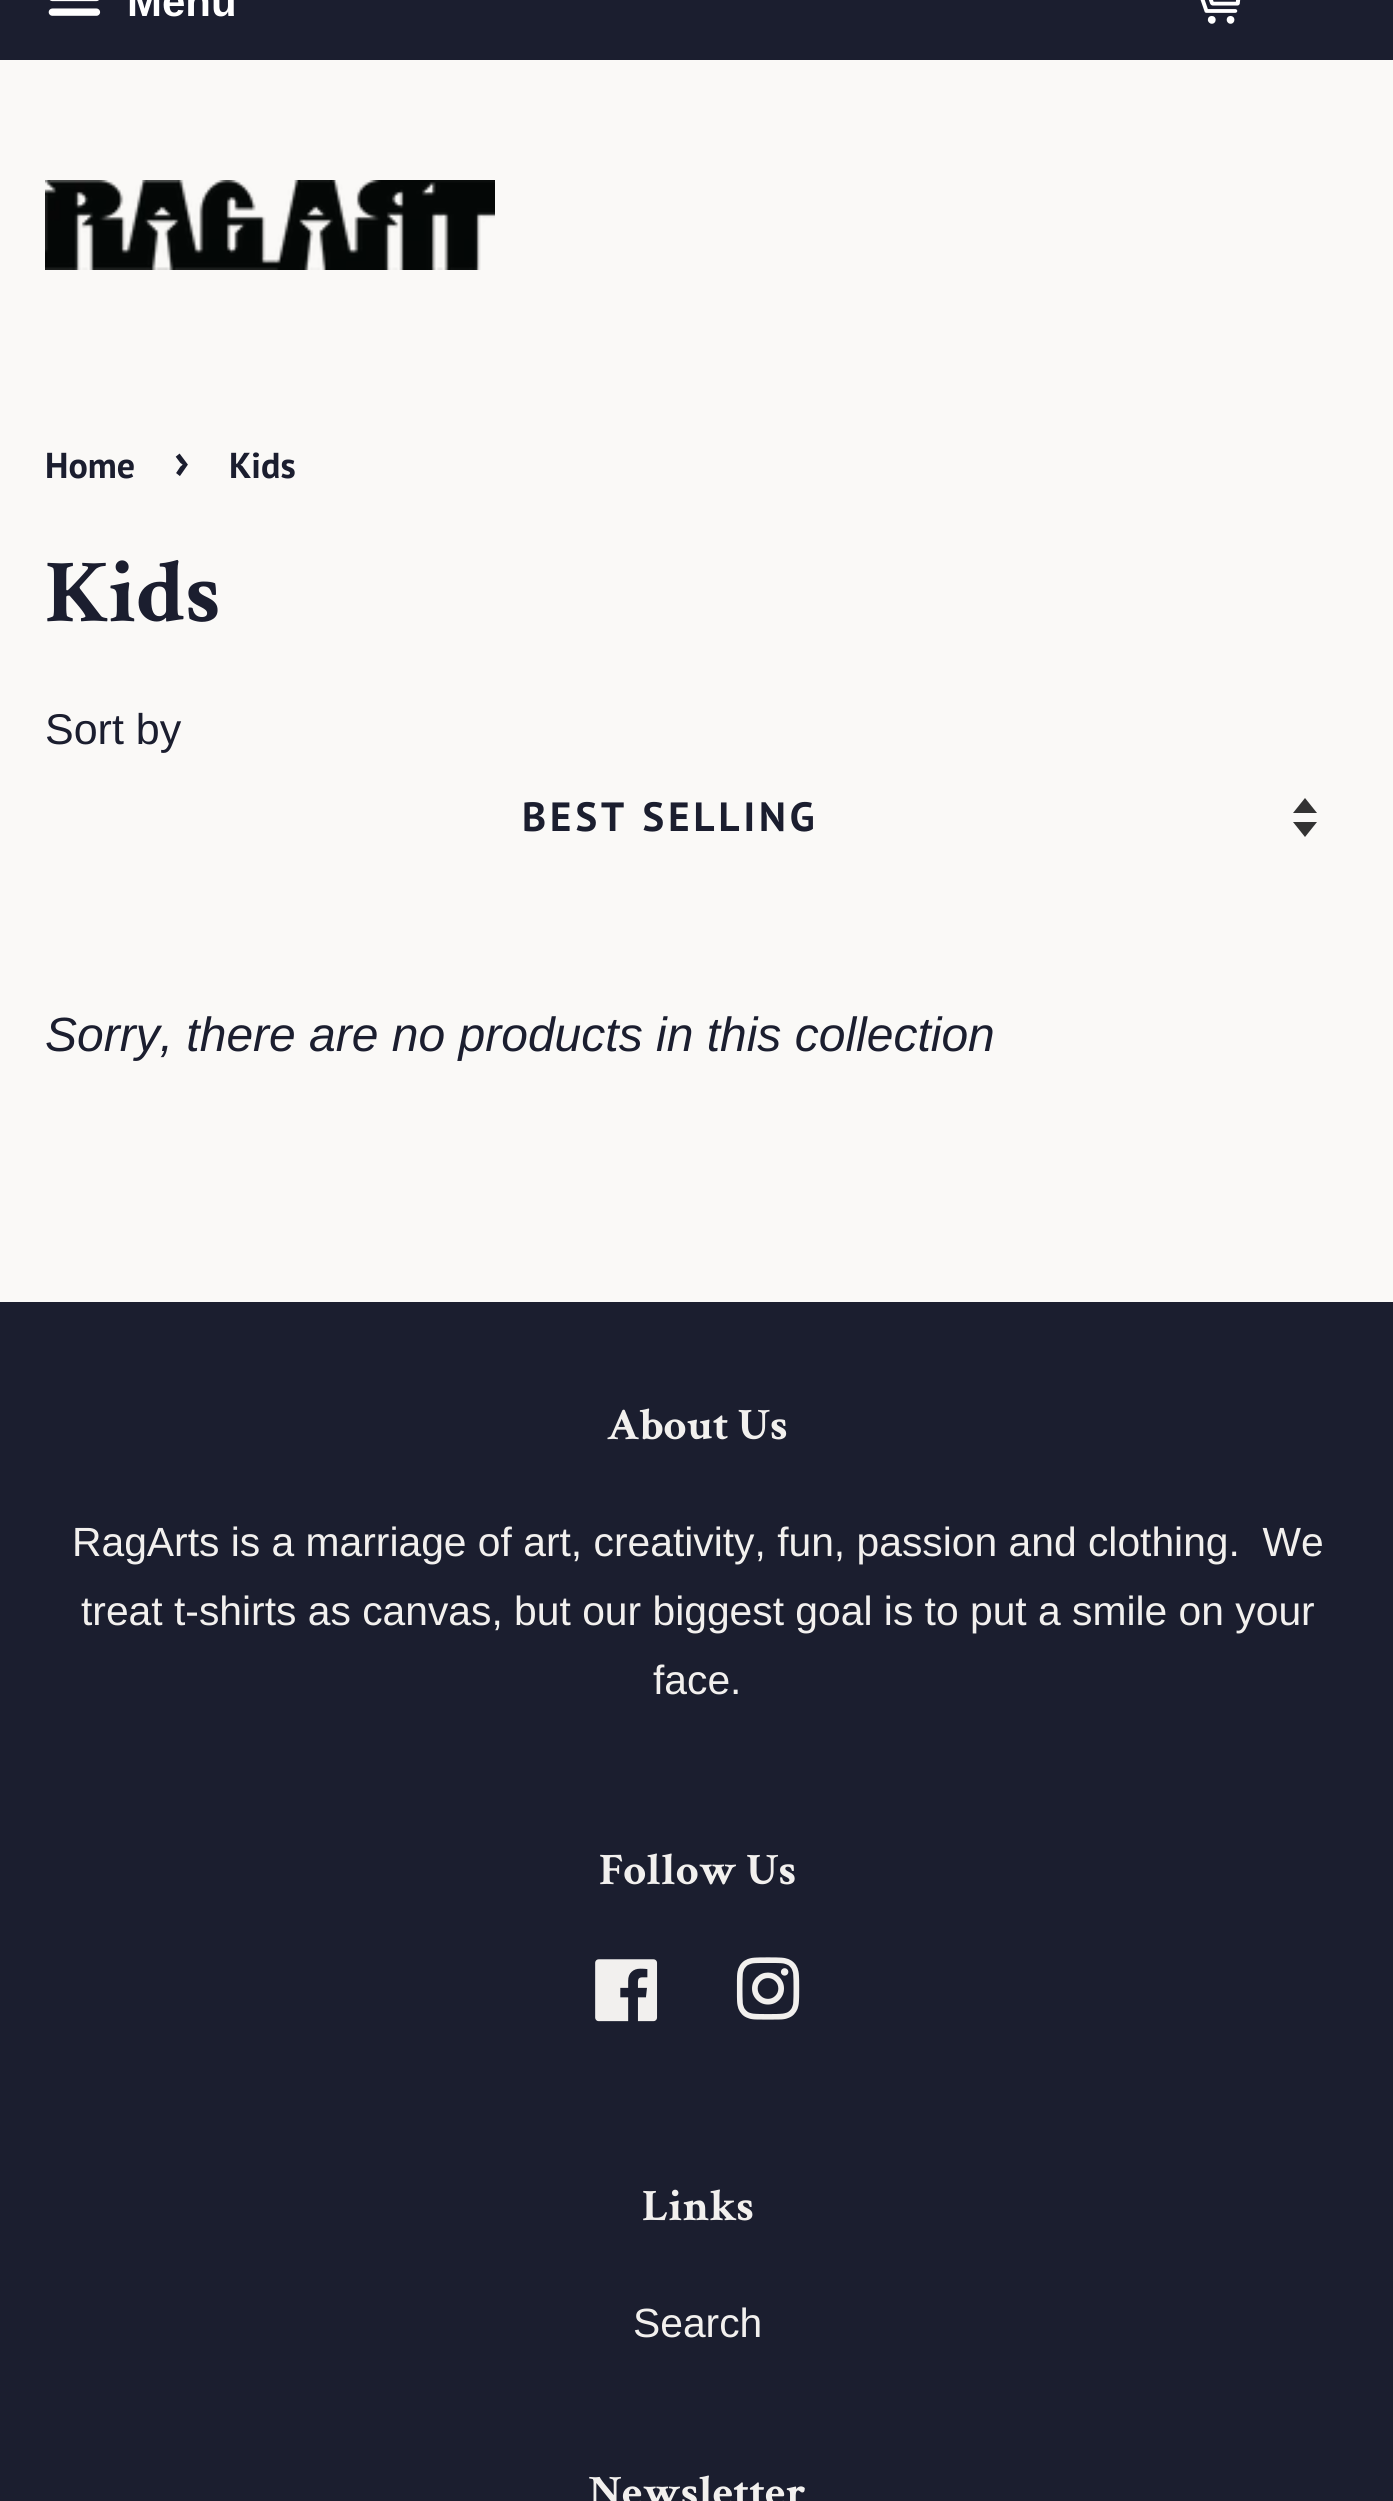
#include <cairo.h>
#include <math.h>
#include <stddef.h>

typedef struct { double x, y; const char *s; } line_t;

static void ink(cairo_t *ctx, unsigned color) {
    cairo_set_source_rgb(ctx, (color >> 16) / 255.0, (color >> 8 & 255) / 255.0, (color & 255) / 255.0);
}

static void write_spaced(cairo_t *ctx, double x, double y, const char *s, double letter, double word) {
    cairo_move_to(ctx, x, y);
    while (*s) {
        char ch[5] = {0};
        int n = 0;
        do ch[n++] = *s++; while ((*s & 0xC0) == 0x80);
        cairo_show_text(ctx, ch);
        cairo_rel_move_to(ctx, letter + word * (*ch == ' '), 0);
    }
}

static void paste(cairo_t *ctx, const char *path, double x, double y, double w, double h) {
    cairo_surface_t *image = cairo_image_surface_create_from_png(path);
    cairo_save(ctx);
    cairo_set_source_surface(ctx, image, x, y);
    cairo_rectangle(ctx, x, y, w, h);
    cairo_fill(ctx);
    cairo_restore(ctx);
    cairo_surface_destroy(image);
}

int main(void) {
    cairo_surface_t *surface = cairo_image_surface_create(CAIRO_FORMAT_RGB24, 1393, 2501);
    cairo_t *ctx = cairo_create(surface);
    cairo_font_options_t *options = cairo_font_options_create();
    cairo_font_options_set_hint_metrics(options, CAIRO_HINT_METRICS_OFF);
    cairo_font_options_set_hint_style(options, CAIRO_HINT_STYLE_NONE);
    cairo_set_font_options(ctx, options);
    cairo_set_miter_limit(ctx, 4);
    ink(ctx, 0xFAF9F7);
    cairo_paint(ctx);
    ink(ctx, 0x1B1E2F);
    cairo_rectangle(ctx, 0, 0, 1393, 60);
    cairo_fill(ctx);
    paste(ctx, "media/1.png", 48, 0, 53, 16);
    cairo_select_font_face(ctx, "Liberation Sans", CAIRO_FONT_SLANT_NORMAL, CAIRO_FONT_WEIGHT_BOLD);
    cairo_set_font_size(ctx, 42);
    ink(ctx, 0xFFFFFF);
    cairo_move_to(ctx, 127, 16);
    cairo_show_text(ctx, "Menu");
    paste(ctx, "media/2.png", 1200, 0, 41, 24);
    paste(ctx, "media/3.png", 45, 180, 450, 90);
    cairo_select_font_face(ctx, "PT Sans", CAIRO_FONT_SLANT_NORMAL, CAIRO_FONT_WEIGHT_BOLD);
    cairo_set_font_size(ctx, 36);
    ink(ctx, 0x1B1E2F);
    cairo_move_to(ctx, 45, 478);
    cairo_show_text(ctx, "Home");
    cairo_set_font_size(ctx, 50);
    cairo_move_to(ctx, 174, 478);
    cairo_show_text(ctx, "›");
    cairo_set_font_size(ctx, 36);
    cairo_move_to(ctx, 229, 478);
    cairo_show_text(ctx, "Kids");
    cairo_select_font_face(ctx, "Crimson Text", CAIRO_FONT_SLANT_NORMAL, CAIRO_FONT_WEIGHT_BOLD);
    cairo_set_font_size(ctx, 90);
    cairo_move_to(ctx, 45, 621);
    cairo_show_text(ctx, "Kids");
    cairo_select_font_face(ctx, "Liberation Sans", CAIRO_FONT_SLANT_NORMAL, CAIRO_FONT_WEIGHT_NORMAL);
    cairo_set_font_size(ctx, 43);
    cairo_move_to(ctx, 45, 744);
    cairo_show_text(ctx, "Sort by");
    ink(ctx, 0x333333);
    cairo_new_path(ctx);
    cairo_move_to(ctx, 1293, 822);
    cairo_line_to(ctx, 1305, 837);
    cairo_line_to(ctx, 1317, 822);
    cairo_close_path(ctx);
    cairo_move_to(ctx, 1305, 798);
    cairo_line_to(ctx, 1293, 813);
    cairo_line_to(ctx, 1317, 813);
    cairo_close_path(ctx);
    cairo_fill(ctx);
    cairo_select_font_face(ctx, "PT Sans", CAIRO_FONT_SLANT_NORMAL, CAIRO_FONT_WEIGHT_BOLD);
    cairo_set_font_size(ctx, 40.8);
    ink(ctx, 0x1B1E2F);
    write_spaced(ctx, 522, 831, "BEST SELLING", 4, 0);
    cairo_select_font_face(ctx, "Liberation Sans", CAIRO_FONT_SLANT_ITALIC, CAIRO_FONT_WEIGHT_NORMAL);
    cairo_set_font_size(ctx, 48);
    cairo_move_to(ctx, 45, 1051);
    cairo_show_text(ctx, "Sorry, there are no products in this collection");
    cairo_rectangle(ctx, 0, 1302, 1393, 1199);
    cairo_fill(ctx);
    cairo_select_font_face(ctx, "Crimson Text", CAIRO_FONT_SLANT_NORMAL, CAIRO_FONT_WEIGHT_BOLD);
    cairo_set_font_size(ctx, 45);
    ink(ctx, 0xF2F0EE);
    cairo_move_to(ctx, 607, 1439);
    cairo_show_text(ctx, "About Us");
    cairo_select_font_face(ctx, "Liberation Sans", CAIRO_FONT_SLANT_NORMAL, CAIRO_FONT_WEIGHT_NORMAL);
    cairo_set_font_size(ctx, 40.8);
    {
        static const line_t items[] = {
            {72, 1556, "RagArts is a marriage of art, creativity, fun, passion and clothing.  We"},
            {81, 1625, "treat t-shirts as canvas, but our biggest goal is to put a smile on your"},
            {653, 1694, "face."},
        };
        for (size_t i = 0; i < sizeof items / sizeof *items; i++) {
            cairo_move_to(ctx, items[i].x, items[i].y);
            cairo_show_text(ctx, items[i].s);
        }
    }
    cairo_select_font_face(ctx, "Crimson Text", CAIRO_FONT_SLANT_NORMAL, CAIRO_FONT_WEIGHT_BOLD);
    cairo_set_font_size(ctx, 45);
    cairo_move_to(ctx, 599, 1884);
    cairo_show_text(ctx, "Follow Us");
    paste(ctx, "media/4.png", 595, 1959, 63, 63);
    paste(ctx, "media/5.png", 736, 1957, 64, 63);
    cairo_move_to(ctx, 642, 2220);
    cairo_show_text(ctx, "Links");
    cairo_select_font_face(ctx, "Liberation Sans", CAIRO_FONT_SLANT_NORMAL, CAIRO_FONT_WEIGHT_NORMAL);
    cairo_set_font_size(ctx, 40.8);
    cairo_move_to(ctx, 633, 2337);
    cairo_show_text(ctx, "Search");
    cairo_select_font_face(ctx, "Crimson Text", CAIRO_FONT_SLANT_NORMAL, CAIRO_FONT_WEIGHT_BOLD);
    cairo_set_font_size(ctx, 45);
    cairo_move_to(ctx, 588, 2506);
    cairo_show_text(ctx, "Newsletter");
    cairo_surface_write_to_png(surface, "image.png");
    cairo_font_options_destroy(options);
    cairo_destroy(ctx);
    cairo_surface_destroy(surface);
    return 0;
}
